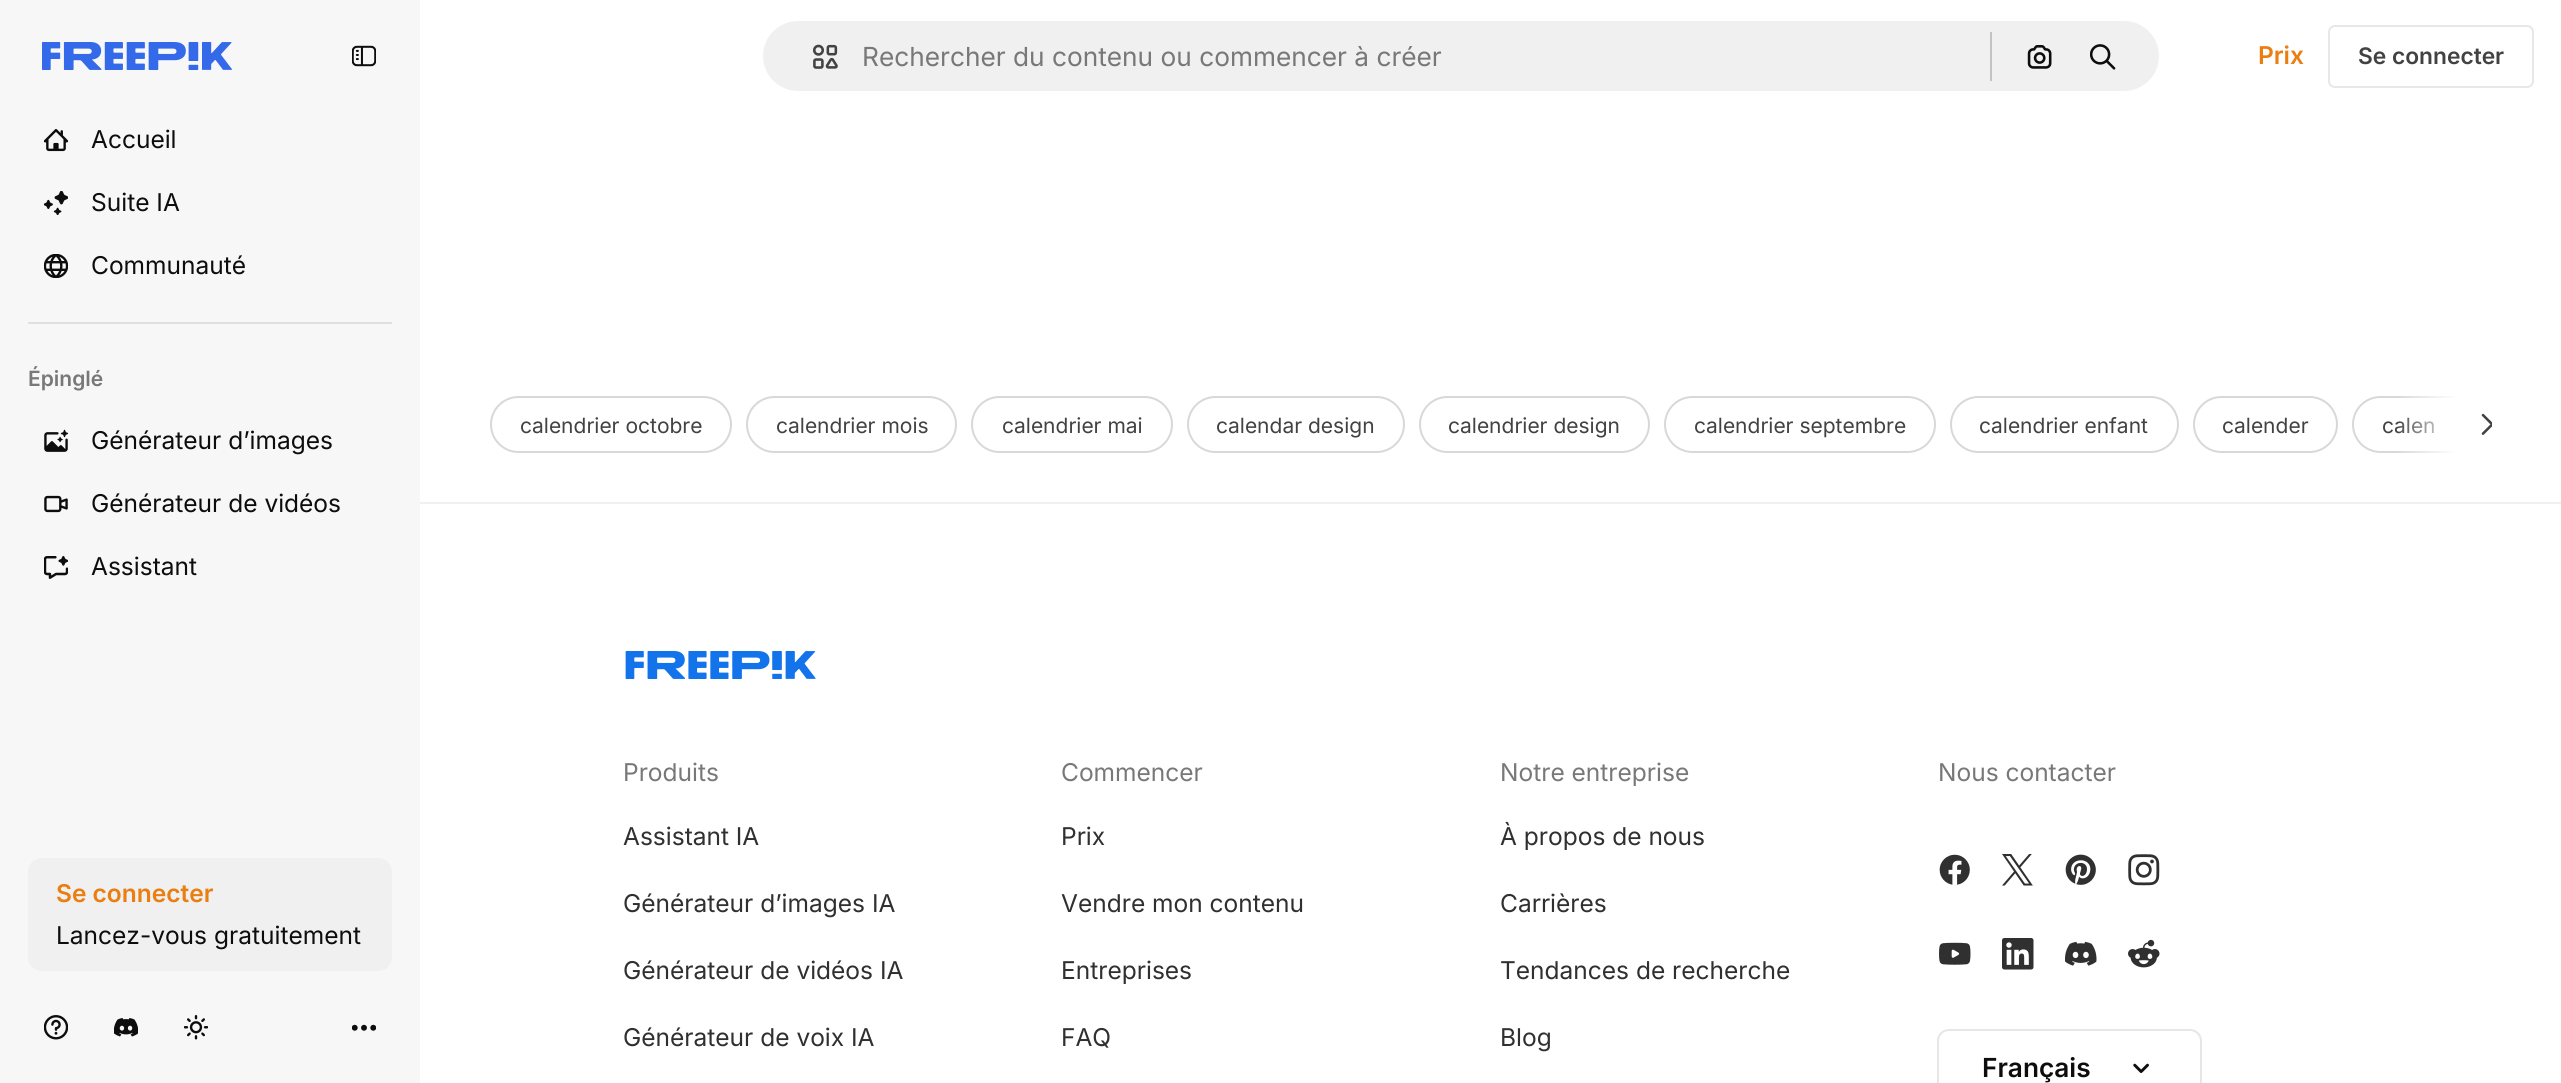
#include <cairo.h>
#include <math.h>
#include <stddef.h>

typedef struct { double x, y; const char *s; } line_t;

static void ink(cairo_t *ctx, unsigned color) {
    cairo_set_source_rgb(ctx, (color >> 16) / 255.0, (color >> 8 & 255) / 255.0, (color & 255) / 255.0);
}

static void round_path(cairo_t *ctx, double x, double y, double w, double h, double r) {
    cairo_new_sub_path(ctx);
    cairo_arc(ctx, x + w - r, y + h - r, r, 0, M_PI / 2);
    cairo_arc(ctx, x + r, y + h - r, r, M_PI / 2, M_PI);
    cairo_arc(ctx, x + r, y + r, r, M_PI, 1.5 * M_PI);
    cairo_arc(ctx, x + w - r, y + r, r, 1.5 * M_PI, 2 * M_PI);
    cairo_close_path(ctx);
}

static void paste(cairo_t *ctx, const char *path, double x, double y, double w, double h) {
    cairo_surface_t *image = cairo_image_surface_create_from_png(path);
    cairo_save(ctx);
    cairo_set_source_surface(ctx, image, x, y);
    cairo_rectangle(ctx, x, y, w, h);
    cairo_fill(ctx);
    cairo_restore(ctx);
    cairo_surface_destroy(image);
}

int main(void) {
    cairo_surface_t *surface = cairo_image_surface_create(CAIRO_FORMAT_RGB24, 2561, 1083);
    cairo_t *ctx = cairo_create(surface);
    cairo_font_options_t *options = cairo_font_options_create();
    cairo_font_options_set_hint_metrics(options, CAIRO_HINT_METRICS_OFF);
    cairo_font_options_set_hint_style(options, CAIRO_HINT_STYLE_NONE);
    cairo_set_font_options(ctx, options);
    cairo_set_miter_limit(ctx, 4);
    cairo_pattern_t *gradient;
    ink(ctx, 0xFFFFFF);
    cairo_paint(ctx);
    ink(ctx, 0xF7F7F7);
    cairo_rectangle(ctx, 0, 0, 420, 1083);
    cairo_fill(ctx);
    paste(ctx, "media/1.png", 42, 42, 190, 28);
    paste(ctx, "media/2.png", 352, 45, 24, 22);
    paste(ctx, "media/3.png", 44, 129, 24, 23);
    cairo_select_font_face(ctx, "Inter", CAIRO_FONT_SLANT_NORMAL, CAIRO_FONT_WEIGHT_NORMAL);
    cairo_set_font_size(ctx, 24.5);
    ink(ctx, 0x0D0D0D);
    cairo_move_to(ctx, 91, 148);
    cairo_show_text(ctx, "Accueil");
    paste(ctx, "media/4.png", 44, 191, 24, 24);
    cairo_move_to(ctx, 91, 211);
    cairo_show_text(ctx, "Suite IA");
    paste(ctx, "media/5.png", 44, 254, 24, 24);
    cairo_move_to(ctx, 91, 274);
    cairo_show_text(ctx, "Communauté");
    ink(ctx, 0xE0E0E0);
    cairo_rectangle(ctx, 28, 322, 364, 2);
    cairo_fill(ctx);
    cairo_select_font_face(ctx, "Inter SemiBold", CAIRO_FONT_SLANT_NORMAL, CAIRO_FONT_WEIGHT_NORMAL);
    cairo_set_font_size(ctx, 21);
    ink(ctx, 0x787878);
    cairo_move_to(ctx, 28, 386);
    cairo_show_text(ctx, "Épinglé");
    paste(ctx, "media/6.png", 44, 429, 24, 23);
    cairo_select_font_face(ctx, "Inter", CAIRO_FONT_SLANT_NORMAL, CAIRO_FONT_WEIGHT_NORMAL);
    cairo_set_font_size(ctx, 24.5);
    ink(ctx, 0x0D0D0D);
    cairo_move_to(ctx, 91, 449);
    cairo_show_text(ctx, "Générateur d’images");
    paste(ctx, "media/7.png", 44, 495, 24, 18);
    cairo_move_to(ctx, 91, 512);
    cairo_show_text(ctx, "Générateur de vidéos");
    paste(ctx, "media/8.png", 44, 556, 24, 23);
    cairo_move_to(ctx, 91, 575);
    cairo_show_text(ctx, "Assistant");
    ink(ctx, 0xF0F0F0);
    round_path(ctx, 28, 858, 364, 113, 14);
    cairo_fill(ctx);
    cairo_select_font_face(ctx, "Inter SemiBold", CAIRO_FONT_SLANT_NORMAL, CAIRO_FONT_WEIGHT_NORMAL);
    ink(ctx, 0xEA7E11);
    cairo_move_to(ctx, 56, 902);
    cairo_show_text(ctx, "Se connecter");
    cairo_select_font_face(ctx, "Inter", CAIRO_FONT_SLANT_NORMAL, CAIRO_FONT_WEIGHT_NORMAL);
    ink(ctx, 0x0D0D0D);
    cairo_move_to(ctx, 56, 944);
    cairo_show_text(ctx, "Lancez-vous gratuitement");
    paste(ctx, "media/9.png", 44, 1015, 24, 25);
    paste(ctx, "media/10.png", 114, 1018, 24, 19);
    paste(ctx, "media/11.png", 184, 1015, 24, 25);
    paste(ctx, "media/12.png", 352, 1024, 24, 7);
    ink(ctx, 0xF0F0F0);
    round_path(ctx, 762, 20, 1398, 72, 36);
    cairo_fill_preserve(ctx);
    ink(ctx, 0xFFFFFF);
    cairo_stroke(ctx);
    paste(ctx, "media/13.png", 813, 44, 25, 25);
    cairo_set_font_size(ctx, 26.25);
    ink(ctx, 0x787878);
    cairo_move_to(ctx, 862, 66);
    cairo_show_text(ctx, "Rechercher du contenu ou commencer à créer");
    ink(ctx, 0xC3C3C3);
    cairo_rectangle(ctx, 1990, 32, 2, 49);
    cairo_fill(ctx);
    paste(ctx, "media/14.png", 2027, 45, 25, 24);
    paste(ctx, "media/15.png", 2090, 44, 26, 26);
    cairo_select_font_face(ctx, "Inter SemiBold", CAIRO_FONT_SLANT_NORMAL, CAIRO_FONT_WEIGHT_NORMAL);
    cairo_set_font_size(ctx, 24.5);
    ink(ctx, 0xEA7E11);
    cairo_move_to(ctx, 2258, 64);
    cairo_show_text(ctx, "Prix");
    round_path(ctx, 2329, 26, 204, 61, 6);
    ink(ctx, 0xE7E7E7);
    cairo_stroke(ctx);
    cairo_set_font_size(ctx, 22.75);
    ink(ctx, 0x424242);
    cairo_move_to(ctx, 2358, 64);
    cairo_show_text(ctx, "Se connecter");
    round_path(ctx, 491, 397, 240, 55, 27.5);
    ink(ctx, 0xD8D8D8);
    cairo_stroke(ctx);
    cairo_select_font_face(ctx, "Inter", CAIRO_FONT_SLANT_NORMAL, CAIRO_FONT_WEIGHT_NORMAL);
    cairo_set_font_size(ctx, 21);
    ink(ctx, 0x424242);
    cairo_move_to(ctx, 520, 433);
    cairo_show_text(ctx, "calendrier octobre");
    round_path(ctx, 747, 397, 209, 55, 27.5);
    ink(ctx, 0xD8D8D8);
    cairo_stroke(ctx);
    ink(ctx, 0x424242);
    cairo_move_to(ctx, 776, 433);
    cairo_show_text(ctx, "calendrier mois");
    round_path(ctx, 972, 397, 200, 55, 27.5);
    ink(ctx, 0xD8D8D8);
    cairo_stroke(ctx);
    ink(ctx, 0x424242);
    cairo_move_to(ctx, 1002, 433);
    cairo_show_text(ctx, "calendrier mai");
    round_path(ctx, 1188, 397, 216, 55, 27.5);
    ink(ctx, 0xD8D8D8);
    cairo_stroke(ctx);
    ink(ctx, 0x424242);
    cairo_move_to(ctx, 1216, 433);
    cairo_show_text(ctx, "calendar design");
    round_path(ctx, 1420, 397, 229, 55, 27.5);
    ink(ctx, 0xD8D8D8);
    cairo_stroke(ctx);
    ink(ctx, 0x424242);
    cairo_move_to(ctx, 1448, 433);
    cairo_show_text(ctx, "calendrier design");
    round_path(ctx, 1665, 397, 270, 55, 27.5);
    ink(ctx, 0xD8D8D8);
    cairo_stroke(ctx);
    ink(ctx, 0x424242);
    cairo_move_to(ctx, 1694, 433);
    cairo_show_text(ctx, "calendrier septembre");
    round_path(ctx, 1951, 397, 227, 55, 27.5);
    ink(ctx, 0xD8D8D8);
    cairo_stroke(ctx);
    ink(ctx, 0x424242);
    cairo_move_to(ctx, 1979, 433);
    cairo_show_text(ctx, "calendrier enfant");
    round_path(ctx, 2194, 397, 143, 55, 27.5);
    ink(ctx, 0xD8D8D8);
    cairo_stroke(ctx);
    ink(ctx, 0x424242);
    cairo_move_to(ctx, 2222, 433);
    cairo_show_text(ctx, "calender");
    cairo_save(ctx);
    cairo_rectangle(ctx, 490, 396, 2002, 57);
    cairo_clip(ctx);
    round_path(ctx, 2353, 397, 143, 55, 27.5);
    ink(ctx, 0xD8D8D8);
    cairo_stroke(ctx);
    cairo_restore(ctx);
    cairo_move_to(ctx, 2382, 433);
    cairo_show_text(ctx, "calen");
    ink(ctx, 0xFFFFFF);
    cairo_rectangle(ctx, 2457, 396, 35, 57);
    cairo_fill(ctx);
    gradient = cairo_pattern_create_linear(2457, 424, 2396, 424);
    cairo_pattern_add_color_stop_rgba(gradient, 0, 1, 1, 1, 1);
    cairo_pattern_add_color_stop_rgba(gradient, 1, 1, 1, 1, 0);
    cairo_set_source(ctx, gradient);
    cairo_pattern_destroy(gradient);
    cairo_rectangle(ctx, 2397, 396, 60, 57);
    cairo_fill(ctx);
    paste(ctx, "media/16.png", 2481, 413, 11, 22);
    ink(ctx, 0xF0F0F0);
    cairo_rectangle(ctx, 420, 502, 2141, 2);
    cairo_fill(ctx);
    paste(ctx, "media/17.png", 625, 651, 191, 28);
    cairo_set_font_size(ctx, 24.5);
    ink(ctx, 0x787878);
    cairo_move_to(ctx, 623, 781);
    cairo_show_text(ctx, "Produits");
    ink(ctx, 0x303030);
    {
        static const line_t items[] = {
            {623, 845, "Assistant IA"},
            {623, 912, "Générateur d’images IA"},
            {623, 979, "Générateur de vidéos IA"},
            {623, 1046, "Générateur de voix IA"},
        };
        for (size_t i = 0; i < sizeof items / sizeof *items; i++) {
            cairo_move_to(ctx, items[i].x, items[i].y);
            cairo_show_text(ctx, items[i].s);
        }
    }
    ink(ctx, 0x787878);
    cairo_move_to(ctx, 1061, 781);
    cairo_show_text(ctx, "Commencer");
    ink(ctx, 0x303030);
    {
        static const line_t items[] = {
            {1061, 845, "Prix"},
            {1061, 912, "Vendre mon contenu"},
            {1061, 979, "Entreprises"},
            {1061, 1046, "FAQ"},
        };
        for (size_t i = 0; i < sizeof items / sizeof *items; i++) {
            cairo_move_to(ctx, items[i].x, items[i].y);
            cairo_show_text(ctx, items[i].s);
        }
    }
    ink(ctx, 0x787878);
    cairo_move_to(ctx, 1500, 781);
    cairo_show_text(ctx, "Notre entreprise");
    ink(ctx, 0x303030);
    {
        static const line_t items[] = {
            {1500, 845, "À propos de nous"},
            {1500, 912, "Carrières"},
            {1500, 979, "Tendances de recherche"},
            {1500, 1046, "Blog"},
        };
        for (size_t i = 0; i < sizeof items / sizeof *items; i++) {
            cairo_move_to(ctx, items[i].x, items[i].y);
            cairo_show_text(ctx, items[i].s);
        }
    }
    ink(ctx, 0x787878);
    cairo_move_to(ctx, 1938, 781);
    cairo_show_text(ctx, "Nous contacter");
    paste(ctx, "media/18.png", 1939, 854, 31, 31);
    paste(ctx, "media/19.png", 2002, 854, 31, 32);
    paste(ctx, "media/20.png", 2065, 854, 31, 31);
    paste(ctx, "media/21.png", 2128, 854, 32, 32);
    paste(ctx, "media/22.png", 1939, 942, 32, 23);
    paste(ctx, "media/23.png", 2002, 938, 32, 32);
    paste(ctx, "media/24.png", 2065, 941, 32, 25);
    paste(ctx, "media/25.png", 2128, 939, 32, 29);
    round_path(ctx, 1938, 1030, 263, 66, 11);
    ink(ctx, 0xE6E6E6);
    cairo_stroke(ctx);
    cairo_select_font_face(ctx, "Inter SemiBold", CAIRO_FONT_SLANT_NORMAL, CAIRO_FONT_WEIGHT_NORMAL);
    cairo_set_font_size(ctx, 26.25);
    ink(ctx, 0x0D0D0D);
    cairo_move_to(ctx, 1982, 1077);
    cairo_show_text(ctx, "Français");
    paste(ctx, "media/26.png", 2133, 1063, 16, 10);
    cairo_surface_write_to_png(surface, "image.png");
    cairo_font_options_destroy(options);
    cairo_destroy(ctx);
    cairo_surface_destroy(surface);
    return 0;
}
